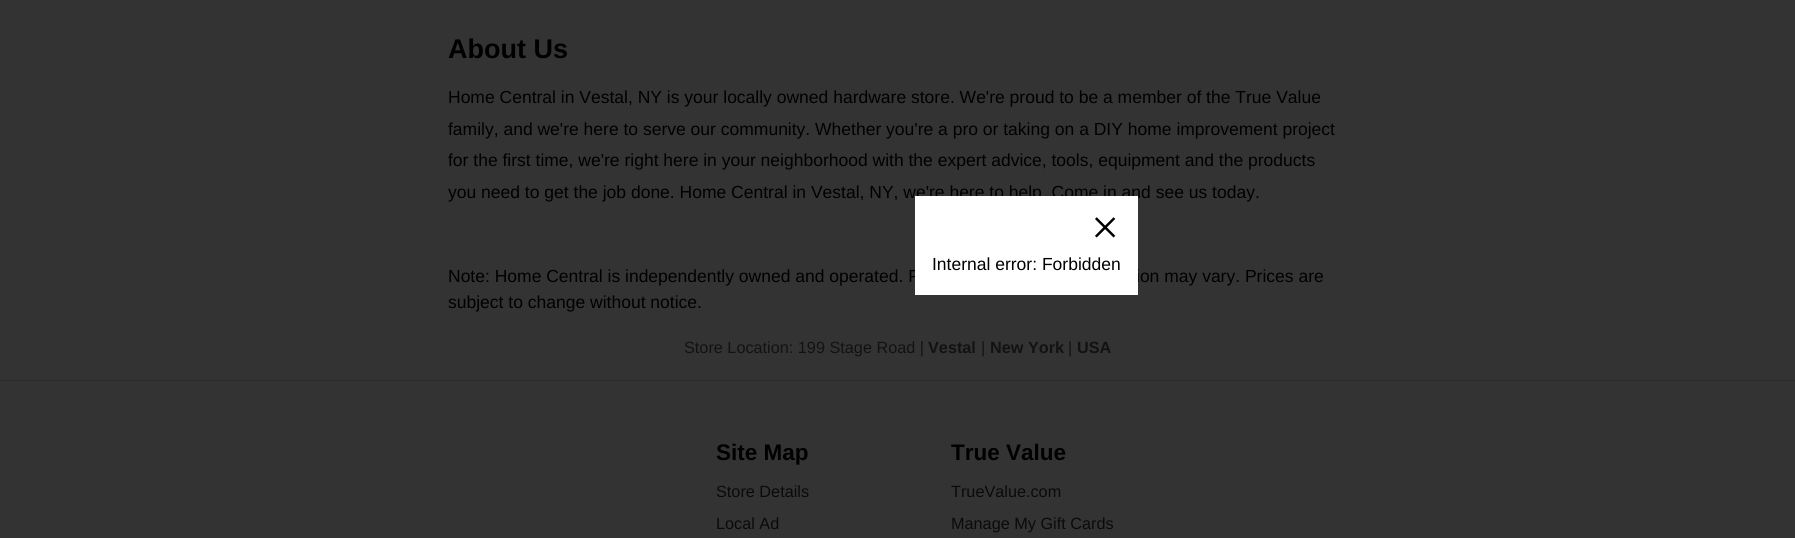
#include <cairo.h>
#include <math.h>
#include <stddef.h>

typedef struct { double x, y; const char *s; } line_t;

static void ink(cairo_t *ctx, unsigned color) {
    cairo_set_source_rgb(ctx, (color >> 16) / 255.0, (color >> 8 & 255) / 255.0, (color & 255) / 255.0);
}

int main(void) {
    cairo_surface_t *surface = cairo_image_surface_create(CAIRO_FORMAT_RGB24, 1795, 538);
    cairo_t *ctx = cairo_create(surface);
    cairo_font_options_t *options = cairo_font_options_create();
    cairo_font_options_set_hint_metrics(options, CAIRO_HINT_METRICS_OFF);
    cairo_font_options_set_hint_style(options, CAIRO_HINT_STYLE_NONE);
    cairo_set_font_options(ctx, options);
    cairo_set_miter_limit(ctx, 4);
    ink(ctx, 0x333333);
    cairo_paint(ctx);
    cairo_select_font_face(ctx, "Liberation Sans", CAIRO_FONT_SLANT_NORMAL, CAIRO_FONT_WEIGHT_BOLD);
    cairo_set_font_size(ctx, 27);
    ink(ctx, 0x000000);
    cairo_move_to(ctx, 448, 58);
    cairo_show_text(ctx, "About Us");
    cairo_select_font_face(ctx, "Liberation Sans", CAIRO_FONT_SLANT_NORMAL, CAIRO_FONT_WEIGHT_NORMAL);
    cairo_set_font_size(ctx, 17.5);
    {
        static const line_t items[] = {
            {448, 103, "Home Central in Vestal, NY is your locally owned hardware store. We're proud to be a member of the True Value"},
            {448, 135, "family, and we're here to serve our community. Whether you're a pro or taking on a DIY home improvement project"},
            {448, 166, "for the first time, we're right here in your neighborhood with the expert advice, tools, equipment and the products"},
            {448, 198, "you need to get the job done. Home Central in Vestal, NY, we're here to help. Come in and see us today."},
            {448, 282, "Note: Home Central is independently owned and operated. P"},
            {1136, 282, "ion may vary. Prices are"},
            {448, 308, "subject to change without notice."},
        };
        for (size_t i = 0; i < sizeof items / sizeof *items; i++) {
            cairo_move_to(ctx, items[i].x, items[i].y);
            cairo_show_text(ctx, items[i].s);
        }
    }
    ink(ctx, 0xFFFFFF);
    cairo_rectangle(ctx, 915, 196, 223, 99);
    cairo_fill(ctx);
    cairo_select_font_face(ctx, "Liberation Serif", CAIRO_FONT_SLANT_NORMAL, CAIRO_FONT_WEIGHT_NORMAL);
    cairo_set_font_size(ctx, 50);
    ink(ctx, 0x000000);
    cairo_move_to(ctx, 1091, 244);
    cairo_show_text(ctx, "×");
    cairo_select_font_face(ctx, "Liberation Sans", CAIRO_FONT_SLANT_NORMAL, CAIRO_FONT_WEIGHT_NORMAL);
    cairo_set_font_size(ctx, 17.5);
    cairo_move_to(ctx, 932, 270);
    cairo_show_text(ctx, "Internal error: Forbidden");
    cairo_set_font_size(ctx, 16.25);
    ink(ctx, 0x121212);
    cairo_move_to(ctx, 684, 353);
    cairo_show_text(ctx, "Store Location: 199 Stage Road |");
    cairo_select_font_face(ctx, "Liberation Sans", CAIRO_FONT_SLANT_NORMAL, CAIRO_FONT_WEIGHT_BOLD);
    cairo_move_to(ctx, 928, 353);
    cairo_show_text(ctx, "Vestal");
    cairo_select_font_face(ctx, "Liberation Sans", CAIRO_FONT_SLANT_NORMAL, CAIRO_FONT_WEIGHT_NORMAL);
    cairo_move_to(ctx, 981, 353);
    cairo_show_text(ctx, "|");
    cairo_select_font_face(ctx, "Liberation Sans", CAIRO_FONT_SLANT_NORMAL, CAIRO_FONT_WEIGHT_BOLD);
    cairo_move_to(ctx, 990, 353);
    cairo_show_text(ctx, "New York");
    cairo_select_font_face(ctx, "Liberation Sans", CAIRO_FONT_SLANT_NORMAL, CAIRO_FONT_WEIGHT_NORMAL);
    cairo_move_to(ctx, 1068, 353);
    cairo_show_text(ctx, "|");
    cairo_select_font_face(ctx, "Liberation Sans", CAIRO_FONT_SLANT_NORMAL, CAIRO_FONT_WEIGHT_BOLD);
    cairo_move_to(ctx, 1077, 353);
    cairo_show_text(ctx, "USA");
    ink(ctx, 0x2B2B2B);
    cairo_rectangle(ctx, 0, 380, 1795, 1);
    cairo_fill(ctx);
    cairo_set_font_size(ctx, 22.5);
    ink(ctx, 0x000000);
    cairo_move_to(ctx, 716, 460);
    cairo_show_text(ctx, "Site Map");
    cairo_select_font_face(ctx, "Liberation Sans", CAIRO_FONT_SLANT_NORMAL, CAIRO_FONT_WEIGHT_NORMAL);
    cairo_set_font_size(ctx, 16.25);
    ink(ctx, 0x0A0A0A);
    cairo_move_to(ctx, 716, 497);
    cairo_show_text(ctx, "Store Details");
    cairo_move_to(ctx, 716, 529);
    cairo_show_text(ctx, "Local Ad");
    cairo_select_font_face(ctx, "Liberation Sans", CAIRO_FONT_SLANT_NORMAL, CAIRO_FONT_WEIGHT_BOLD);
    cairo_set_font_size(ctx, 22.5);
    ink(ctx, 0x000000);
    cairo_move_to(ctx, 951, 460);
    cairo_show_text(ctx, "True Value");
    cairo_select_font_face(ctx, "Liberation Sans", CAIRO_FONT_SLANT_NORMAL, CAIRO_FONT_WEIGHT_NORMAL);
    cairo_set_font_size(ctx, 16.25);
    ink(ctx, 0x0A0A0A);
    cairo_move_to(ctx, 951, 497);
    cairo_show_text(ctx, "TrueValue.com");
    cairo_move_to(ctx, 951, 529);
    cairo_show_text(ctx, "Manage My Gift Cards");
    cairo_surface_write_to_png(surface, "image.png");
    cairo_font_options_destroy(options);
    cairo_destroy(ctx);
    cairo_surface_destroy(surface);
    return 0;
}
